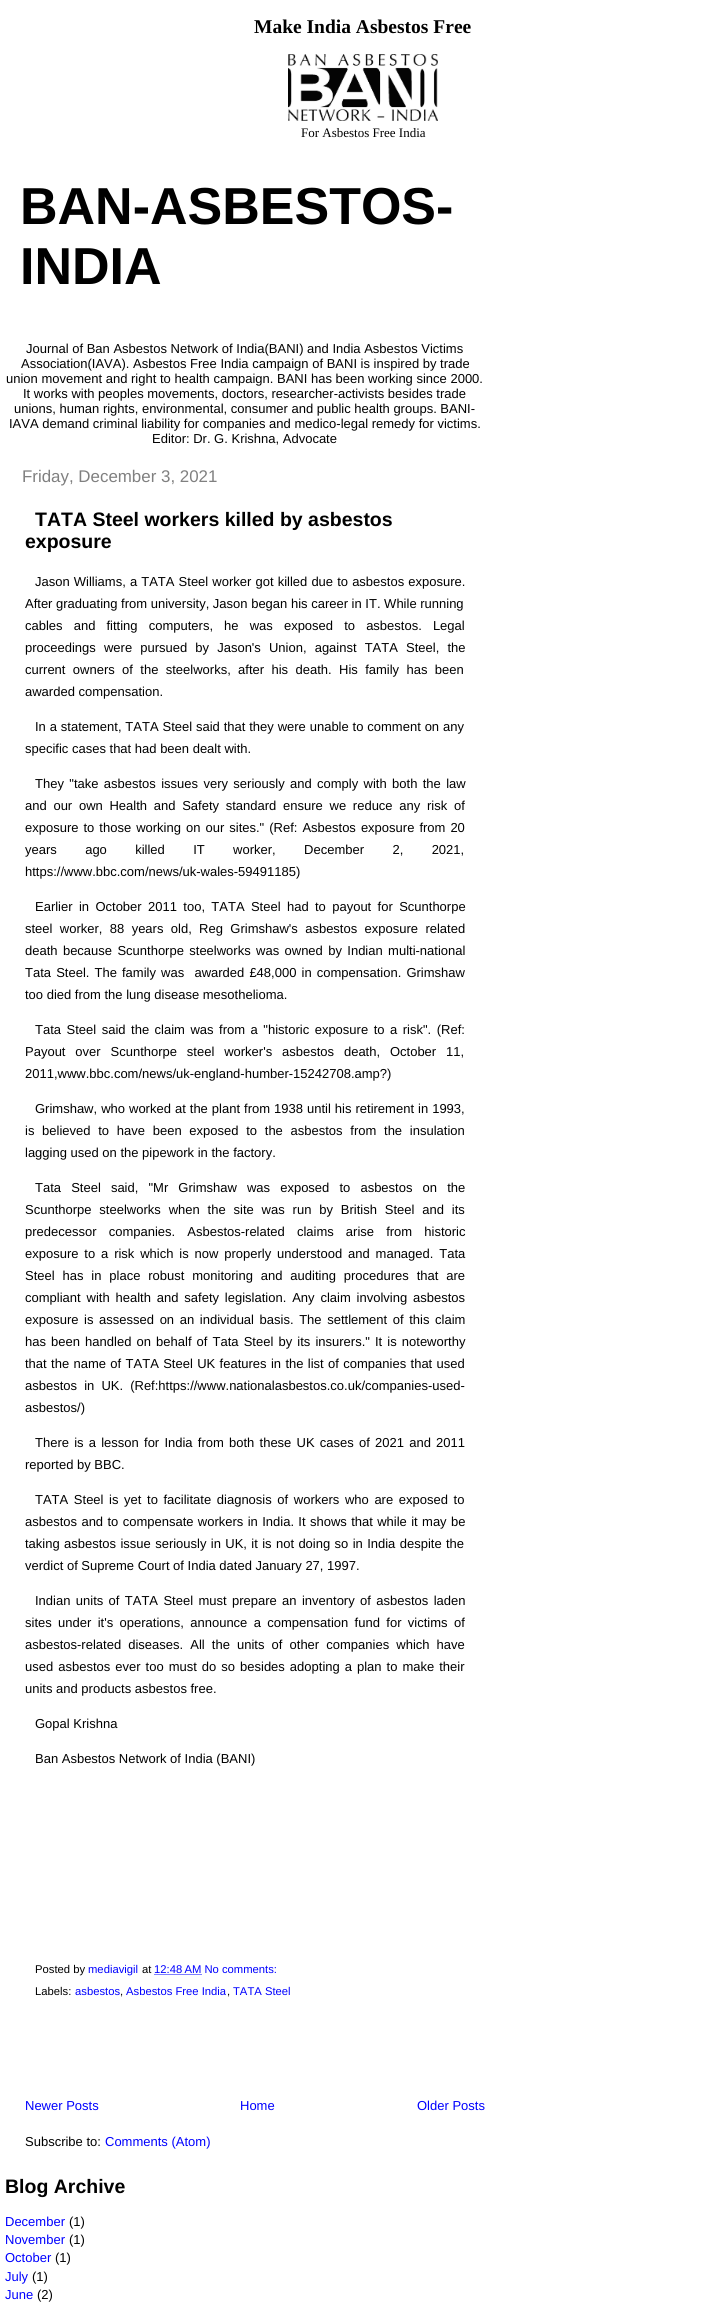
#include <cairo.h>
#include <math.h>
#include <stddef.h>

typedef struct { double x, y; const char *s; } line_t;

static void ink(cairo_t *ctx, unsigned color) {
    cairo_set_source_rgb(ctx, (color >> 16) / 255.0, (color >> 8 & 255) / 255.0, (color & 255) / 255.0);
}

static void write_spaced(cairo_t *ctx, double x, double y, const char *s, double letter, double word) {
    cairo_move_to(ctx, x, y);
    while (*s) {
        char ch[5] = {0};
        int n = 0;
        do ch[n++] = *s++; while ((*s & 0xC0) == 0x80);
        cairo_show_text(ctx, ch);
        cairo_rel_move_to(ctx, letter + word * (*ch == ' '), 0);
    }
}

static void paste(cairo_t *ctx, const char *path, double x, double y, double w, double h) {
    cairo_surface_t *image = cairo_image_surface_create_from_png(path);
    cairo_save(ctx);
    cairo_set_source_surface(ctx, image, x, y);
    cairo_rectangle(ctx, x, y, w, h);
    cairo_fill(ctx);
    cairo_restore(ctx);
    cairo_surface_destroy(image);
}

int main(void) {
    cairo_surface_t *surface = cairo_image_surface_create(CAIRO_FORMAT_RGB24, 721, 2304);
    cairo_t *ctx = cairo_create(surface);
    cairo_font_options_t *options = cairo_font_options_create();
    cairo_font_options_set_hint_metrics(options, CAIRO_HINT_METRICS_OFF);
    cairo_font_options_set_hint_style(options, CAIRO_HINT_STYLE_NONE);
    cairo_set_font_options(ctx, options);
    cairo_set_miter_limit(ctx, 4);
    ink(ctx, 0xFFFFFF);
    cairo_paint(ctx);
    cairo_select_font_face(ctx, "Liberation Serif", CAIRO_FONT_SLANT_NORMAL, CAIRO_FONT_WEIGHT_BOLD);
    cairo_set_font_size(ctx, 19.5);
    ink(ctx, 0x000000);
    cairo_move_to(ctx, 254, 33);
    cairo_show_text(ctx, "Make India Asbestos Free");
    paste(ctx, "media/1.png", 288, 54, 150, 67);
    cairo_select_font_face(ctx, "Liberation Serif", CAIRO_FONT_SLANT_NORMAL, CAIRO_FONT_WEIGHT_NORMAL);
    cairo_set_font_size(ctx, 13);
    cairo_move_to(ctx, 301, 137);
    cairo_show_text(ctx, "For Asbestos Free India");
    cairo_select_font_face(ctx, "Liberation Sans", CAIRO_FONT_SLANT_NORMAL, CAIRO_FONT_WEIGHT_BOLD);
    cairo_set_font_size(ctx, 52);
    cairo_move_to(ctx, 20, 224);
    cairo_show_text(ctx, "BAN-ASBESTOS-");
    cairo_move_to(ctx, 20, 284);
    cairo_show_text(ctx, "INDIA");
    cairo_select_font_face(ctx, "Liberation Sans", CAIRO_FONT_SLANT_NORMAL, CAIRO_FONT_WEIGHT_NORMAL);
    cairo_set_font_size(ctx, 13);
    {
        static const line_t items[] = {
            {26, 353, "Journal of Ban Asbestos Network of India(BANI) and India Asbestos Victims"},
            {21, 368, "Association(IAVA). Asbestos Free India campaign of BANI is inspired by trade"},
            {6, 383, "union movement and right to health campaign. BANI has been working since 2000."},
            {23, 398, "It works with peoples movements, doctors, researcher-activists besides trade"},
            {14, 413, "unions, human rights, environmental, consumer and public health groups. BANI-"},
            {9, 428, "IAVA demand criminal liability for companies and medico-legal remedy for victims."},
            {152, 443, "Editor: Dr. G. Krishna, Advocate"},
        };
        for (size_t i = 0; i < sizeof items / sizeof *items; i++) {
            cairo_move_to(ctx, items[i].x, items[i].y);
            cairo_show_text(ctx, items[i].s);
        }
    }
    cairo_set_font_size(ctx, 16.9);
    ink(ctx, 0x808080);
    cairo_move_to(ctx, 22, 482);
    cairo_show_text(ctx, "Friday, December 3, 2021");
    cairo_select_font_face(ctx, "Liberation Sans", CAIRO_FONT_SLANT_NORMAL, CAIRO_FONT_WEIGHT_BOLD);
    cairo_set_font_size(ctx, 19.5);
    ink(ctx, 0x000000);
    cairo_move_to(ctx, 35, 526);
    cairo_show_text(ctx, "TATA Steel workers killed by asbestos");
    cairo_move_to(ctx, 25, 548);
    cairo_show_text(ctx, "exposure");
    cairo_select_font_face(ctx, "Liberation Sans", CAIRO_FONT_SLANT_NORMAL, CAIRO_FONT_WEIGHT_NORMAL);
    cairo_set_font_size(ctx, 13);
    write_spaced(ctx, 35, 586, "Jason Williams, a TATA Steel worker got killed due to asbestos exposure.", 0, 0.5);
    cairo_move_to(ctx, 25, 608);
    cairo_show_text(ctx, "After graduating from university, Jason began his career in IT. While running");
    write_spaced(ctx, 25, 630, "cables and fitting computers, he was exposed to asbestos. Legal", 0, 7.5);
    write_spaced(ctx, 25, 652, "proceedings were pursued by Jason's Union, against TATA Steel, the", 0, 4.5);
    write_spaced(ctx, 25, 674, "current owners of the steelworks, after his death. His family has been", 0, 3.75);
    cairo_move_to(ctx, 25, 696);
    cairo_show_text(ctx, "awarded compensation.");
    write_spaced(ctx, 35, 731, "In a statement, TATA Steel said that they were unable to comment on any", 0, 0.25);
    cairo_move_to(ctx, 25, 753);
    cairo_show_text(ctx, "specific cases that had been dealt with.");
    write_spaced(ctx, 35, 788, "They \"take asbestos issues very seriously and comply with both the law", 0, 1.75);
    write_spaced(ctx, 25, 810, "and our own Health and Safety standard ensure we reduce any risk of", 0, 3.1);
    write_spaced(ctx, 25, 832, "exposure to those working on our sites.\" (Ref: Asbestos exposure from 20", 0, 1.4);
    write_spaced(ctx, 25, 854, "years ago killed IT worker, December 2, 2021,", 0, 24.75);
    cairo_move_to(ctx, 25, 876);
    cairo_show_text(ctx, "https://www.bbc.com/news/uk-wales-59491185)");
    write_spaced(ctx, 35, 911, "Earlier in October 2011 too, TATA Steel had to payout for Scunthorpe", 0, 2.75);
    write_spaced(ctx, 25, 933, "steel worker, 88 years old, Reg Grimshaw's asbestos exposure related", 0, 3.75);
    write_spaced(ctx, 25, 955, "death because Scunthorpe steelworks was owned by Indian multi-national", 0, 1.75);
    write_spaced(ctx, 25, 977, "Tata Steel. The family was  awarded £48,000 in compensation. Grimshaw", 0, 1.5);
    cairo_move_to(ctx, 25, 999);
    cairo_show_text(ctx, "too died from the lung disease mesothelioma.");
    write_spaced(ctx, 35, 1034, "Tata Steel said the claim was from a \"historic exposure to a risk\". (Ref:", 0, 1.9);
    write_spaced(ctx, 25, 1056, "Payout over Scunthorpe steel worker's asbestos death, October 11,", 0, 6.25);
    cairo_move_to(ctx, 25, 1078);
    cairo_show_text(ctx, "2011,www.bbc.com/news/uk-england-humber-15242708.amp?)");
    write_spaced(ctx, 35, 1113, "Grimshaw, who worked at the plant from 1938 until his retirement in 1993,", 0, 0.4);
    write_spaced(ctx, 25, 1135, "is believed to have been exposed to the asbestos from the insulation", 0, 4.1);
    cairo_move_to(ctx, 25, 1157);
    cairo_show_text(ctx, "lagging used on the pipework in the factory.");
    write_spaced(ctx, 35, 1192, "Tata Steel said, \"Mr Grimshaw was exposed to asbestos on the", 0, 6.5);
    write_spaced(ctx, 25, 1214, "Scunthorpe steelworks when the site was run by British Steel and its", 0, 4.25);
    write_spaced(ctx, 25, 1236, "predecessor companies. Asbestos-related claims arise from historic", 0, 8.5);
    write_spaced(ctx, 25, 1258, "exposure to a risk which is now properly understood and managed. Tata", 0, 2.25);
    write_spaced(ctx, 25, 1280, "Steel has in place robust monitoring and auditing procedures that are", 0, 4.25);
    write_spaced(ctx, 25, 1302, "compliant with health and safety legislation. Any claim involving asbestos", 0, 2.25);
    write_spaced(ctx, 25, 1324, "exposure is assessed on an individual basis. The settlement of this claim", 0, 2);
    write_spaced(ctx, 25, 1346, "has been handled on behalf of Tata Steel by its insurers.\" It is noteworthy", 0, 1.5);
    write_spaced(ctx, 25, 1368, "that the name of TATA Steel UK features in the list of companies that used", 0, 0.75);
    write_spaced(ctx, 25, 1390, "asbestos in UK. (Ref:https://www.nationalasbestos.co.uk/companies-used-", 0, 3.5);
    cairo_move_to(ctx, 25, 1412);
    cairo_show_text(ctx, "asbestos/)");
    write_spaced(ctx, 35, 1447, "There is a lesson for India from both these UK cases of 2021 and 2011", 0, 1.6);
    cairo_move_to(ctx, 25, 1469);
    cairo_show_text(ctx, "reported by BBC.");
    write_spaced(ctx, 35, 1504, "TATA Steel is yet to facilitate diagnosis of workers who are exposed to", 0, 2);
    write_spaced(ctx, 25, 1526, "asbestos and to compensate workers in India. It shows that while it may be", 0, 0.75);
    write_spaced(ctx, 25, 1548, "taking asbestos issue seriously in UK, it is not doing so in India despite the", 0, 0.75);
    cairo_move_to(ctx, 25, 1570);
    cairo_show_text(ctx, "verdict of Supreme Court of India dated January 27, 1997.");
    write_spaced(ctx, 35, 1605, "Indian units of TATA Steel must prepare an inventory of asbestos laden", 0, 1.75);
    write_spaced(ctx, 25, 1627, "sites under it's operations, announce a compensation fund for victims of", 0, 2.75);
    write_spaced(ctx, 25, 1649, "asbestos-related diseases. All the units of other companies which have", 0, 3.5);
    write_spaced(ctx, 25, 1671, "used asbestos ever too must do so besides adopting a plan to make their", 0, 1.4);
    {
        static const line_t items[] = {
            {25, 1693, "units and products asbestos free."},
            {35, 1728, "Gopal Krishna"},
            {35, 1763, "Ban Asbestos Network of India (BANI)"},
        };
        for (size_t i = 0; i < sizeof items / sizeof *items; i++) {
            cairo_move_to(ctx, items[i].x, items[i].y);
            cairo_show_text(ctx, items[i].s);
        }
    }
    cairo_set_font_size(ctx, 11.25);
    cairo_move_to(ctx, 35, 1973);
    cairo_show_text(ctx, "Posted by");
    ink(ctx, 0x0000FF);
    cairo_move_to(ctx, 88, 1973);
    cairo_show_text(ctx, "mediavigil");
    ink(ctx, 0x000000);
    cairo_move_to(ctx, 142, 1973);
    cairo_show_text(ctx, "at");
    ink(ctx, 0x0000FF);
    cairo_move_to(ctx, 154, 1973);
    cairo_show_text(ctx, "12:48 AM No comments:");
    cairo_new_path(ctx);
    cairo_move_to(ctx, 154.5, 1974.5);
    cairo_line_to(ctx, 202, 1974.5);
    cairo_set_line_width(ctx, 1);
    cairo_set_dash(ctx, (double[]){1, 1}, 2, 0);
    cairo_stroke(ctx);
    ink(ctx, 0x000000);
    cairo_move_to(ctx, 35, 1995);
    cairo_show_text(ctx, "Labels:");
    ink(ctx, 0x0000FF);
    cairo_move_to(ctx, 75, 1995);
    cairo_show_text(ctx, "asbestos");
    ink(ctx, 0x000000);
    cairo_move_to(ctx, 120, 1995);
    cairo_show_text(ctx, ",");
    ink(ctx, 0x0000FF);
    cairo_move_to(ctx, 126, 1995);
    cairo_show_text(ctx, "Asbestos Free India");
    ink(ctx, 0x000000);
    cairo_move_to(ctx, 227, 1995);
    cairo_show_text(ctx, ",");
    ink(ctx, 0x0000FF);
    cairo_move_to(ctx, 233, 1995);
    cairo_show_text(ctx, "TATA Steel");
    cairo_set_font_size(ctx, 13);
    {
        static const line_t items[] = {
            {25, 2110, "Newer Posts"},
            {240, 2110, "Home"},
            {417, 2110, "Older Posts"},
        };
        for (size_t i = 0; i < sizeof items / sizeof *items; i++) {
            cairo_move_to(ctx, items[i].x, items[i].y);
            cairo_show_text(ctx, items[i].s);
        }
    }
    ink(ctx, 0x000000);
    cairo_move_to(ctx, 25, 2146);
    cairo_show_text(ctx, "Subscribe to:");
    ink(ctx, 0x0000FF);
    cairo_move_to(ctx, 105, 2146);
    cairo_show_text(ctx, "Comments (Atom)");
    cairo_select_font_face(ctx, "Liberation Sans", CAIRO_FONT_SLANT_NORMAL, CAIRO_FONT_WEIGHT_BOLD);
    cairo_set_font_size(ctx, 19.5);
    ink(ctx, 0x000000);
    cairo_move_to(ctx, 5, 2193);
    cairo_show_text(ctx, "Blog Archive");
    cairo_select_font_face(ctx, "Liberation Sans", CAIRO_FONT_SLANT_NORMAL, CAIRO_FONT_WEIGHT_NORMAL);
    cairo_set_font_size(ctx, 13);
    ink(ctx, 0x0000FF);
    cairo_move_to(ctx, 5, 2226);
    cairo_show_text(ctx, "December");
    ink(ctx, 0x000000);
    cairo_move_to(ctx, 69, 2226);
    cairo_show_text(ctx, "(1)");
    ink(ctx, 0x0000FF);
    cairo_move_to(ctx, 5, 2244);
    cairo_show_text(ctx, "November");
    ink(ctx, 0x000000);
    cairo_move_to(ctx, 69, 2244);
    cairo_show_text(ctx, "(1)");
    ink(ctx, 0x0000FF);
    cairo_move_to(ctx, 5, 2262);
    cairo_show_text(ctx, "October");
    ink(ctx, 0x000000);
    cairo_move_to(ctx, 55, 2262);
    cairo_show_text(ctx, "(1)");
    ink(ctx, 0x0000FF);
    cairo_move_to(ctx, 5, 2281);
    cairo_show_text(ctx, "July");
    ink(ctx, 0x000000);
    cairo_move_to(ctx, 32, 2281);
    cairo_show_text(ctx, "(1)");
    ink(ctx, 0x0000FF);
    cairo_move_to(ctx, 5, 2299);
    cairo_show_text(ctx, "June");
    ink(ctx, 0x000000);
    cairo_move_to(ctx, 37, 2299);
    cairo_show_text(ctx, "(2)");
    cairo_surface_write_to_png(surface, "image.png");
    cairo_font_options_destroy(options);
    cairo_destroy(ctx);
    cairo_surface_destroy(surface);
    return 0;
}
